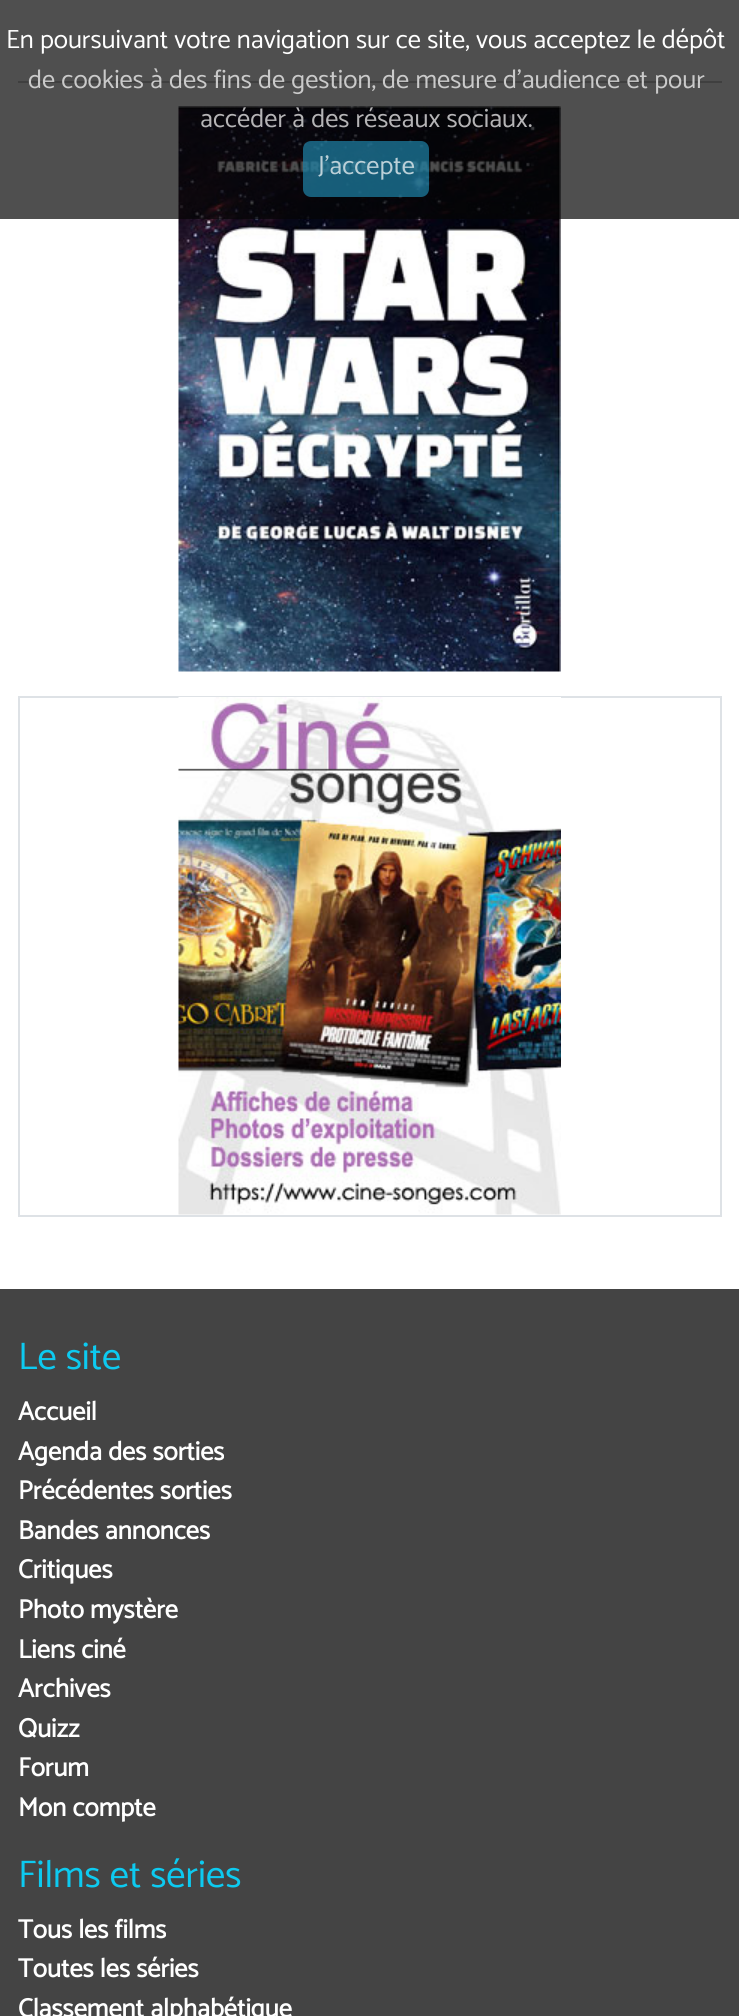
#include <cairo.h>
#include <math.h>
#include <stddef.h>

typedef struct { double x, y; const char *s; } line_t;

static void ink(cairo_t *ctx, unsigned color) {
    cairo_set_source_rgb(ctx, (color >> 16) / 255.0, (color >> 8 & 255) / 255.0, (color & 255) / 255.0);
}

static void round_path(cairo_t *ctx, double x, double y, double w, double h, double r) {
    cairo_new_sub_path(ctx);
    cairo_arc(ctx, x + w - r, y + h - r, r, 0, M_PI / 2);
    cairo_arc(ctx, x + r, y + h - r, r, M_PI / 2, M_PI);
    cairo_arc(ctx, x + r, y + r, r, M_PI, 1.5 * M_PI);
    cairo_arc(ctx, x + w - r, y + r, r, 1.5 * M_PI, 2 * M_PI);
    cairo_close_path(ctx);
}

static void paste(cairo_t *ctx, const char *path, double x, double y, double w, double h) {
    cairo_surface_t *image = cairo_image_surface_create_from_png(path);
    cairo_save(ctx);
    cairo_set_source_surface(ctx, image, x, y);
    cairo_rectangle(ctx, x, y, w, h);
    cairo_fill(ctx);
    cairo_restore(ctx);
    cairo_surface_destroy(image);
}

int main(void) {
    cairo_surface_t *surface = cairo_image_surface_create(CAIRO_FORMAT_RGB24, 739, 2016);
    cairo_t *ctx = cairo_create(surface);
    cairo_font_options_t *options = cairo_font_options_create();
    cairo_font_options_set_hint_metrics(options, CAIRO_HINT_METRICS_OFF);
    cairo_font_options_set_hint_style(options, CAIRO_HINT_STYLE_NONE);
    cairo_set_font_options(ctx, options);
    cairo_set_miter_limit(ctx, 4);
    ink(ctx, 0xFFFFFF);
    cairo_paint(ctx);
    ink(ctx, 0xC8C9CA);
    cairo_rectangle(ctx, 18, 81, 704, 2);
    cairo_fill(ctx);
    paste(ctx, "media/1.png", 178, 106, 383, 566);
    cairo_set_source_rgba(ctx, 0.02, 0.02, 0.02, 0.7);
    cairo_rectangle(ctx, 0, 0, 739, 219);
    cairo_fill(ctx);
    cairo_select_font_face(ctx, "Catamaran Thin", CAIRO_FONT_SLANT_NORMAL, CAIRO_FONT_WEIGHT_NORMAL);
    cairo_set_font_size(ctx, 26.4);
    ink(ctx, 0xFFFFFF);
    cairo_move_to(ctx, 6, 48);
    cairo_show_text(ctx, "En poursuivant votre navigation sur ce site, vous acceptez le dépôt");
    ink(ctx, 0xCACACA);
    cairo_move_to(ctx, 28, 88);
    cairo_show_text(ctx, "de cookies à des fins de gestion, de mesure d’audience et pour");
    ink(ctx, 0xB5B4B6);
    cairo_move_to(ctx, 200, 127);
    cairo_show_text(ctx, "accéder à des réseaux sociaux.");
    cairo_set_source_rgba(ctx, 0.122, 0.514, 0.659, 0.7);
    round_path(ctx, 303, 141, 126, 56, 8);
    cairo_fill(ctx);
    ink(ctx, 0xBBD0D8);
    cairo_move_to(ctx, 318, 174);
    cairo_show_text(ctx, "J'accepte");
    cairo_rectangle(ctx, 19, 697, 702, 519);
    ink(ctx, 0xDEE2E6);
    cairo_stroke(ctx);
    paste(ctx, "media/2.png", 178, 697, 383, 518);
    ink(ctx, 0x444444);
    cairo_rectangle(ctx, 0, 1289, 739, 727);
    cairo_fill(ctx);
    cairo_set_font_size(ctx, 38.5);
    ink(ctx, 0x0DCAF0);
    cairo_move_to(ctx, 18, 1369);
    cairo_show_text(ctx, "Le site");
    cairo_select_font_face(ctx, "Catamaran", CAIRO_FONT_SLANT_NORMAL, CAIRO_FONT_WEIGHT_BOLD);
    cairo_set_font_size(ctx, 26.4);
    ink(ctx, 0xFFFFFF);
    {
        static const line_t items[] = {
            {18, 1420, "Accueil"},
            {18, 1460, "Agenda des sorties"},
            {18, 1499, "Précédentes sorties"},
            {18, 1539, "Bandes annonces"},
            {18, 1578, "Critiques"},
            {18, 1618, "Photo mystère"},
            {18, 1658, "Liens ciné"},
            {18, 1697, "Archives"},
            {18, 1737, "Quizz"},
            {18, 1776, "Forum"},
            {18, 1816, "Mon compte"},
        };
        for (size_t i = 0; i < sizeof items / sizeof *items; i++) {
            cairo_move_to(ctx, items[i].x, items[i].y);
            cairo_show_text(ctx, items[i].s);
        }
    }
    cairo_select_font_face(ctx, "Catamaran Thin", CAIRO_FONT_SLANT_NORMAL, CAIRO_FONT_WEIGHT_NORMAL);
    cairo_set_font_size(ctx, 38.5);
    ink(ctx, 0x0DCAF0);
    cairo_move_to(ctx, 18, 1887);
    cairo_show_text(ctx, "Films et séries");
    cairo_select_font_face(ctx, "Catamaran", CAIRO_FONT_SLANT_NORMAL, CAIRO_FONT_WEIGHT_BOLD);
    cairo_set_font_size(ctx, 26.4);
    ink(ctx, 0xFFFFFF);
    {
        static const line_t items[] = {
            {18, 1938, "Tous les films"},
            {18, 1977, "Toutes les séries"},
            {18, 2017, "Classement alphabétique"},
        };
        for (size_t i = 0; i < sizeof items / sizeof *items; i++) {
            cairo_move_to(ctx, items[i].x, items[i].y);
            cairo_show_text(ctx, items[i].s);
        }
    }
    cairo_surface_write_to_png(surface, "image.png");
    cairo_font_options_destroy(options);
    cairo_destroy(ctx);
    cairo_surface_destroy(surface);
    return 0;
}
